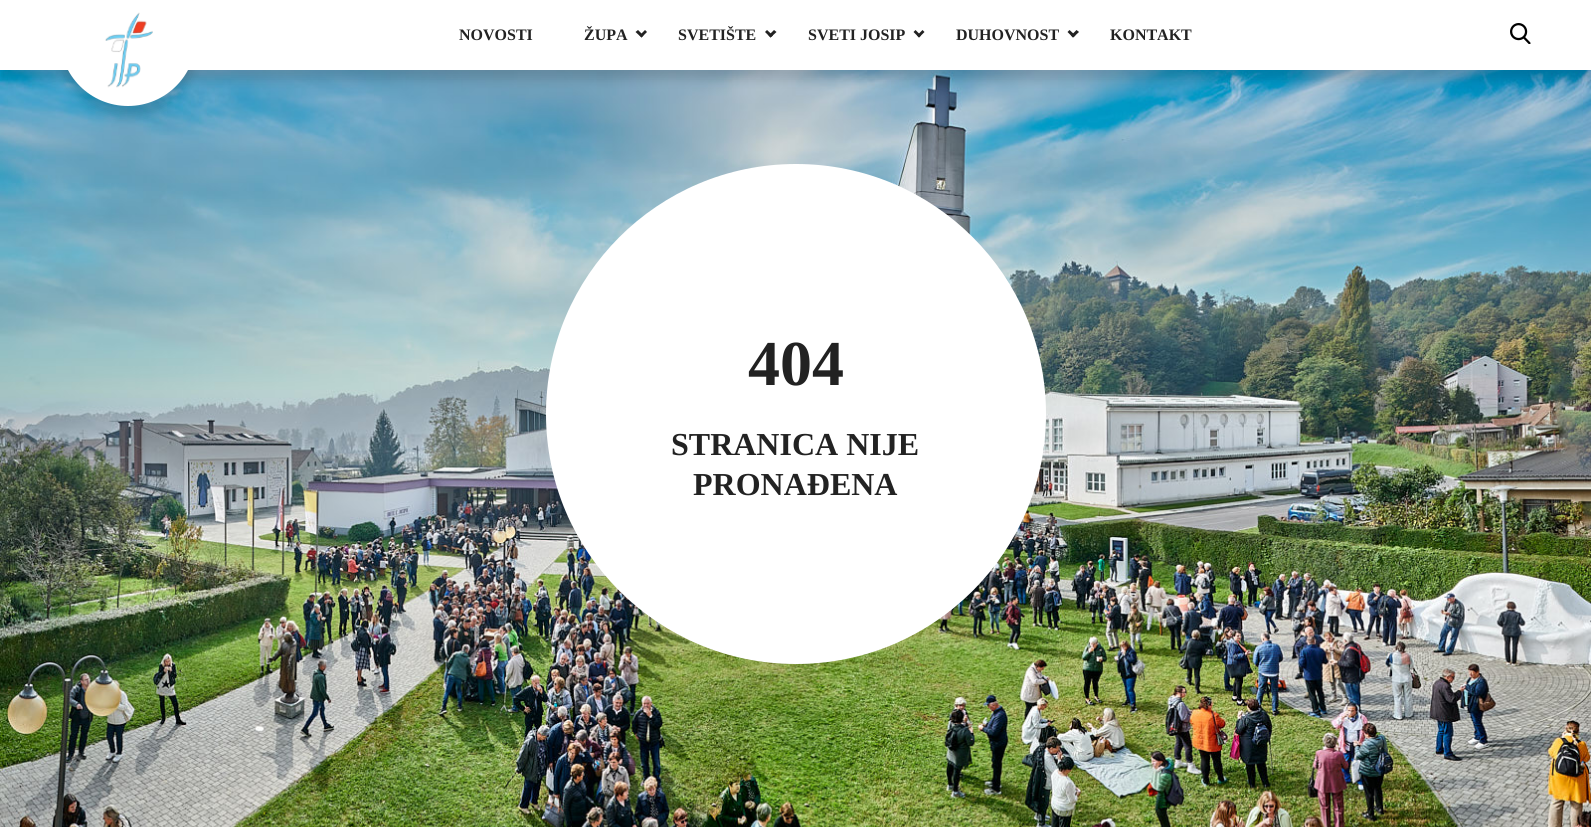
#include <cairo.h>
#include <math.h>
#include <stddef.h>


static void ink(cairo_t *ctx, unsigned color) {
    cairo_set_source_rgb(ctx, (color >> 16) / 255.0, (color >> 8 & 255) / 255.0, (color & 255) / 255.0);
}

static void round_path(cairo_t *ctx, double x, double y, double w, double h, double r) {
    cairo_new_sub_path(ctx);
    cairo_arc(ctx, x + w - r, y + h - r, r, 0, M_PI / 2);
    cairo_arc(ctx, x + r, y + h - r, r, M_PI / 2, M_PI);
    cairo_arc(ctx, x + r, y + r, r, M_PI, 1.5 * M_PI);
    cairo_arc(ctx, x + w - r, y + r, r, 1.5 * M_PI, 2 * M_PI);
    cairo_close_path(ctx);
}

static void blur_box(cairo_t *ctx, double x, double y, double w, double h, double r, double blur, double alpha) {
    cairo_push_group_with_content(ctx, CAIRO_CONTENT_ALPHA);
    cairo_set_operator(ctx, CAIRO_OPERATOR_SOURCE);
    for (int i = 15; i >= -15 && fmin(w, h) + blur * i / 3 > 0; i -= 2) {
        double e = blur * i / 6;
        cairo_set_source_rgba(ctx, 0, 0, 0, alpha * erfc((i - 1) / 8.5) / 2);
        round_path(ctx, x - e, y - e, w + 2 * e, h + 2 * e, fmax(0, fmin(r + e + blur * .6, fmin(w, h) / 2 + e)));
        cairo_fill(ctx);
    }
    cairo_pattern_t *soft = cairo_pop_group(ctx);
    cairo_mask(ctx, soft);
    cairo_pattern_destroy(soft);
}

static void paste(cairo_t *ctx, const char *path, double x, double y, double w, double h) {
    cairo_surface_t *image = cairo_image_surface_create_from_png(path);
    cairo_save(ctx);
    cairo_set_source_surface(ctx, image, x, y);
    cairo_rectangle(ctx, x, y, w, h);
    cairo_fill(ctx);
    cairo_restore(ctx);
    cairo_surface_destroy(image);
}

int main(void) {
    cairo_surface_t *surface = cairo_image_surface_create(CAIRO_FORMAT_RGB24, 1591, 827);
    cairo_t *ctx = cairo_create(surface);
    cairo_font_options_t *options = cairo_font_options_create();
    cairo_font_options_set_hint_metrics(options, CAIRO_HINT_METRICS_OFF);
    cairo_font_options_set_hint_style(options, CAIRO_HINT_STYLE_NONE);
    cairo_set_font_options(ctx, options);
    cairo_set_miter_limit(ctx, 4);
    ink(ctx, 0xFFFFFF);
    cairo_paint(ctx);
    paste(ctx, "media/3.png", 0, 70, 1591, 757);
    ink(ctx, 0x000000);
    blur_box(ctx, 0, 9, 1591, 70, 0, 5.5, 0.15);
    blur_box(ctx, 60, -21, 136, 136, 68, 5.5, 0.15);
    ink(ctx, 0xFFFFFF);
    cairo_rectangle(ctx, 0, 0, 1591, 70);
    cairo_fill(ctx);
    cairo_arc(ctx, 128, 38, 68, 0, 2 * M_PI);
    cairo_fill(ctx);
    paste(ctx, "media/1.png", 105, 12, 48, 76);
    cairo_select_font_face(ctx, "Liberation Serif", CAIRO_FONT_SLANT_NORMAL, CAIRO_FONT_WEIGHT_BOLD);
    cairo_set_font_size(ctx, 16);
    ink(ctx, 0x222222);
    cairo_move_to(ctx, 459, 40);
    cairo_show_text(ctx, "NOVOSTI");
    cairo_move_to(ctx, 584, 40);
    cairo_show_text(ctx, "ŽUPA");
    cairo_new_path(ctx);
    cairo_move_to(ctx, 647, 32);
    cairo_line_to(ctx, 641.5, 37.5);
    cairo_line_to(ctx, 639.5, 35.5);
    cairo_line_to(ctx, 645, 30);
    cairo_close_path(ctx);
    cairo_fill(ctx);
    cairo_new_path(ctx);
    cairo_move_to(ctx, 643.5, 35.5);
    cairo_line_to(ctx, 641.5, 37.5);
    cairo_line_to(ctx, 635.5, 32);
    cairo_line_to(ctx, 638, 30);
    cairo_close_path(ctx);
    cairo_fill(ctx);
    cairo_move_to(ctx, 678, 40);
    cairo_show_text(ctx, "SVETIŠTE");
    cairo_new_path(ctx);
    cairo_move_to(ctx, 776.5, 32);
    cairo_line_to(ctx, 770.5, 37.5);
    cairo_line_to(ctx, 768.5, 35.5);
    cairo_line_to(ctx, 774, 30);
    cairo_close_path(ctx);
    cairo_fill(ctx);
    cairo_new_path(ctx);
    cairo_move_to(ctx, 773, 35.5);
    cairo_line_to(ctx, 770.5, 37.5);
    cairo_line_to(ctx, 765, 32);
    cairo_line_to(ctx, 767, 30);
    cairo_close_path(ctx);
    cairo_fill(ctx);
    cairo_move_to(ctx, 808, 40);
    cairo_show_text(ctx, "SVETI JOSIP");
    cairo_new_path(ctx);
    cairo_move_to(ctx, 924.5, 32);
    cairo_line_to(ctx, 919, 37.5);
    cairo_line_to(ctx, 917, 35.5);
    cairo_line_to(ctx, 922.5, 30);
    cairo_close_path(ctx);
    cairo_fill(ctx);
    cairo_new_path(ctx);
    cairo_move_to(ctx, 921, 35.5);
    cairo_line_to(ctx, 919, 37.5);
    cairo_line_to(ctx, 913.5, 32);
    cairo_line_to(ctx, 915.5, 30);
    cairo_close_path(ctx);
    cairo_fill(ctx);
    cairo_move_to(ctx, 956, 40);
    cairo_show_text(ctx, "DUHOVNOST");
    cairo_new_path(ctx);
    cairo_move_to(ctx, 1079, 32);
    cairo_line_to(ctx, 1073, 37.5);
    cairo_line_to(ctx, 1071, 35.5);
    cairo_line_to(ctx, 1076.5, 30);
    cairo_close_path(ctx);
    cairo_fill(ctx);
    cairo_new_path(ctx);
    cairo_move_to(ctx, 1075.5, 35.5);
    cairo_line_to(ctx, 1073, 37.5);
    cairo_line_to(ctx, 1067.5, 32);
    cairo_line_to(ctx, 1069.5, 30);
    cairo_close_path(ctx);
    cairo_fill(ctx);
    cairo_move_to(ctx, 1110, 40);
    cairo_show_text(ctx, "KONTAKT");
    paste(ctx, "media/2.png", 1510, 23, 21, 21);
    ink(ctx, 0xFFFFFF);
    cairo_arc(ctx, 796, 414, 250, 0, 2 * M_PI);
    cairo_fill(ctx);
    cairo_set_font_size(ctx, 64);
    ink(ctx, 0x222222);
    cairo_move_to(ctx, 748, 385);
    cairo_show_text(ctx, "404");
    cairo_set_font_size(ctx, 32);
    cairo_move_to(ctx, 671, 455);
    cairo_show_text(ctx, "STRANICA NIJE");
    cairo_move_to(ctx, 693, 495);
    cairo_show_text(ctx, "PRONAĐENA");
    cairo_surface_write_to_png(surface, "image.png");
    cairo_font_options_destroy(options);
    cairo_destroy(ctx);
    cairo_surface_destroy(surface);
    return 0;
}
